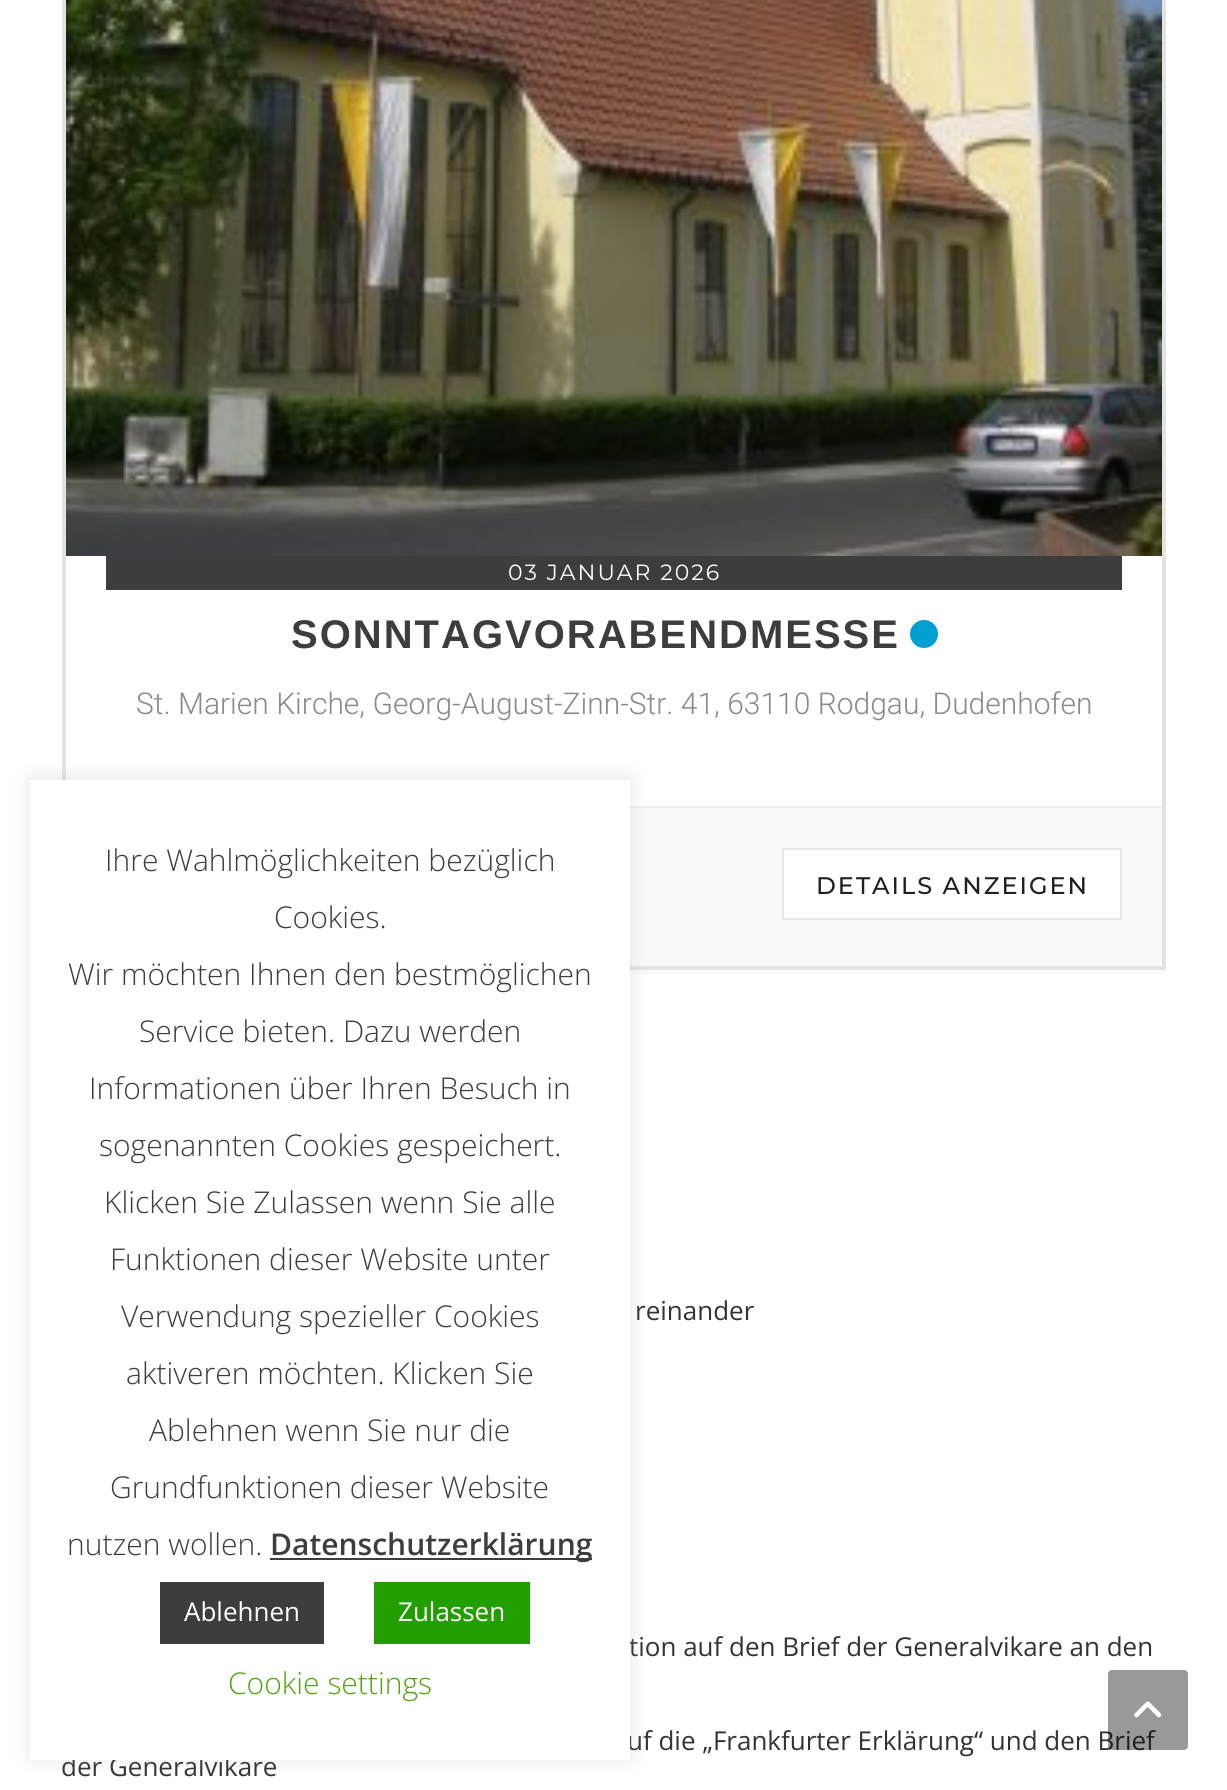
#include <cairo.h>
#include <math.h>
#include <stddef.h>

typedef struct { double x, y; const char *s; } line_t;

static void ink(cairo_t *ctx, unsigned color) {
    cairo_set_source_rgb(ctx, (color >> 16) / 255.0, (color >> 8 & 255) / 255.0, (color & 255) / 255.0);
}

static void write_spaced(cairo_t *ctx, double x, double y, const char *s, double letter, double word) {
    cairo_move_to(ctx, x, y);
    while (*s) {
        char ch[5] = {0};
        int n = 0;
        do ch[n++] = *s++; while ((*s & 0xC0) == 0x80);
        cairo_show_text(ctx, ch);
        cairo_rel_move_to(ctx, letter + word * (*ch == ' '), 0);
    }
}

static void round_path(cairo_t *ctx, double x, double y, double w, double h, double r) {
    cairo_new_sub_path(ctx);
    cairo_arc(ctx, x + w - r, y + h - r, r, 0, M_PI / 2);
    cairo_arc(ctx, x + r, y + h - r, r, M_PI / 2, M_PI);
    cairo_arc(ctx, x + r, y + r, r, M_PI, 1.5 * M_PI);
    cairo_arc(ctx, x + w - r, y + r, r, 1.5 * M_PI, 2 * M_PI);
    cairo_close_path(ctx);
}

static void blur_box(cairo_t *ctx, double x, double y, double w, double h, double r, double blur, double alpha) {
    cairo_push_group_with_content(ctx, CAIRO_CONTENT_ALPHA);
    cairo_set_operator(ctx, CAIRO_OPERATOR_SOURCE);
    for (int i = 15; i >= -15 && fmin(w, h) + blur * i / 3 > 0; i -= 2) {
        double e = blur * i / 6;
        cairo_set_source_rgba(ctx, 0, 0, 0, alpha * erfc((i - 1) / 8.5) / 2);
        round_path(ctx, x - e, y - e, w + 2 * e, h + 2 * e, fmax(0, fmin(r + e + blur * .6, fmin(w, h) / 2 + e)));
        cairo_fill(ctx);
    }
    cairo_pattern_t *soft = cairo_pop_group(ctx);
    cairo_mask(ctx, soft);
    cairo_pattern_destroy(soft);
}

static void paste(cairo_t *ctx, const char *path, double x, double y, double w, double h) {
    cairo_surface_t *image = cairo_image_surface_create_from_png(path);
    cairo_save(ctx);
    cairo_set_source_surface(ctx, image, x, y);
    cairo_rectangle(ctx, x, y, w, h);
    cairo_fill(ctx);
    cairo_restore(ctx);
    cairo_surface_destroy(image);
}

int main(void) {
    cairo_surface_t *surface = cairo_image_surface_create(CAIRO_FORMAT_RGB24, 1227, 1790);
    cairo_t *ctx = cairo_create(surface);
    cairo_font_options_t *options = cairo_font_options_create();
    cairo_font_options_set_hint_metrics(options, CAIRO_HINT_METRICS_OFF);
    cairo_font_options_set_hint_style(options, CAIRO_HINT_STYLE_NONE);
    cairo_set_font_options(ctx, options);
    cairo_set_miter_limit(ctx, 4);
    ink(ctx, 0xFFFFFF);
    cairo_paint(ctx);
    ink(ctx, 0xFBFBFB);
    cairo_rectangle(ctx, 630, 970, 536, 4);
    cairo_fill(ctx);
    cairo_rectangle(ctx, 64, -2, 1100, 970);
    ink(ctx, 0xE3E3E3);
    cairo_set_line_width(ctx, 4);
    cairo_stroke(ctx);
    paste(ctx, "media/1.png", 66, 0, 1096, 556);
    ink(ctx, 0x3D3D3D);
    cairo_rectangle(ctx, 106, 556, 1016, 34);
    cairo_fill(ctx);
    cairo_select_font_face(ctx, "Montserrat", CAIRO_FONT_SLANT_NORMAL, CAIRO_FONT_WEIGHT_NORMAL);
    cairo_set_font_size(ctx, 22);
    ink(ctx, 0xFFFFFF);
    write_spaced(ctx, 508, 580, "03 JANUAR 2026", 2, 0);
    cairo_select_font_face(ctx, "Liberation Sans", CAIRO_FONT_SLANT_NORMAL, CAIRO_FONT_WEIGHT_BOLD);
    cairo_set_font_size(ctx, 40);
    ink(ctx, 0x3D3D3D);
    write_spaced(ctx, 291, 648, "SONNTAGVORABENDMESSE", 2, 0);
    ink(ctx, 0x00A0D2);
    cairo_new_path(ctx);
    cairo_arc(ctx, 924, 634, 14, 0, 2 * M_PI);
    cairo_fill(ctx);
    cairo_select_font_face(ctx, "Roboto Light", CAIRO_FONT_SLANT_NORMAL, CAIRO_FONT_WEIGHT_NORMAL);
    cairo_set_font_size(ctx, 30);
    ink(ctx, 0x8A8A8A);
    cairo_move_to(ctx, 136, 714);
    cairo_show_text(ctx, "St. Marien Kirche, Georg-August-Zinn-Str. 41, 63110 Rodgau, Dudenhofen");
    ink(ctx, 0xFAFAFA);
    cairo_rectangle(ctx, 630, 808, 532, 158);
    cairo_fill(ctx);
    ink(ctx, 0xEFEFEF);
    cairo_rectangle(ctx, 630, 806, 532, 2);
    cairo_fill(ctx);
    ink(ctx, 0xFFFFFF);
    cairo_rectangle(ctx, 783, 849, 338, 70);
    cairo_fill_preserve(ctx);
    ink(ctx, 0xE8E8E8);
    cairo_set_line_width(ctx, 2);
    cairo_stroke(ctx);
    cairo_select_font_face(ctx, "Montserrat Medium", CAIRO_FONT_SLANT_NORMAL, CAIRO_FONT_WEIGHT_NORMAL);
    cairo_set_font_size(ctx, 24);
    ink(ctx, 0x202020);
    write_spaced(ctx, 816, 894, "DETAILS ANZEIGEN", 2, 0);
    cairo_select_font_face(ctx, "Open Sans", CAIRO_FONT_SLANT_NORMAL, CAIRO_FONT_WEIGHT_NORMAL);
    cairo_set_font_size(ctx, 26);
    ink(ctx, 0x333333);
    {
        static const line_t items[] = {
            {635, 1320, "reinander"},
            {629, 1656, "tion auf den Brief der Generalvikare an den"},
            {627, 1750, "uf die „Frankfurter Erklärung“ und den Brief"},
            {61, 1776, "der Generalvikare"},
        };
        for (size_t i = 0; i < sizeof items / sizeof *items; i++) {
            cairo_move_to(ctx, items[i].x, items[i].y);
            cairo_show_text(ctx, items[i].s);
        }
    }
    ink(ctx, 0xACABAB);
    blur_box(ctx, 30, 778, 600, 980, 0, 10, 0.3);
    ink(ctx, 0xFFFFFF);
    cairo_rectangle(ctx, 30, 780, 600, 980);
    cairo_fill(ctx);
    cairo_select_font_face(ctx, "Open Sans Light", CAIRO_FONT_SLANT_NORMAL, CAIRO_FONT_WEIGHT_NORMAL);
    cairo_set_font_size(ctx, 30);
    ink(ctx, 0x3D3D3D);
    {
        static const line_t items[] = {
            {105, 871, "Ihre Wahlmöglichkeiten bezüglich"},
            {274, 928, "Cookies."},
            {68, 985, "Wir möchten Ihnen den bestmöglichen"},
            {139, 1042, "Service bieten. Dazu werden"},
            {89, 1099, "Informationen über Ihren Besuch in"},
            {99, 1156, "sogenannten Cookies gespeichert."},
            {104, 1213, "Klicken Sie Zulassen wenn Sie alle"},
            {110, 1270, "Funktionen dieser Website unter"},
            {121, 1327, "Verwendung spezieller Cookies"},
            {126, 1384, "aktiveren möchten. Klicken Sie"},
            {149, 1441, "Ablehnen wenn Sie nur die"},
            {110, 1498, "Grundfunktionen dieser Website"},
            {67, 1555, "nutzen wollen."},
        };
        for (size_t i = 0; i < sizeof items / sizeof *items; i++) {
            cairo_move_to(ctx, items[i].x, items[i].y);
            cairo_show_text(ctx, items[i].s);
        }
    }
    cairo_rectangle(ctx, 270, 1558, 322, 2);
    cairo_fill(ctx);
    cairo_select_font_face(ctx, "Open Sans SemiBold", CAIRO_FONT_SLANT_NORMAL, CAIRO_FONT_WEIGHT_NORMAL);
    cairo_move_to(ctx, 270, 1555);
    cairo_show_text(ctx, "Datenschutzerklärung");
    cairo_rectangle(ctx, 160, 1582, 164, 62);
    cairo_fill(ctx);
    cairo_select_font_face(ctx, "Open Sans", CAIRO_FONT_SLANT_NORMAL, CAIRO_FONT_WEIGHT_NORMAL);
    cairo_set_font_size(ctx, 26);
    ink(ctx, 0xFFFFFF);
    cairo_move_to(ctx, 184, 1621);
    cairo_show_text(ctx, "Ablehnen");
    ink(ctx, 0x239E01);
    cairo_rectangle(ctx, 374, 1582, 156, 62);
    cairo_fill(ctx);
    ink(ctx, 0xFFFFFF);
    cairo_move_to(ctx, 398, 1621);
    cairo_show_text(ctx, "Zulassen");
    cairo_select_font_face(ctx, "Open Sans Light", CAIRO_FONT_SLANT_NORMAL, CAIRO_FONT_WEIGHT_NORMAL);
    cairo_set_font_size(ctx, 30);
    ink(ctx, 0x53A30E);
    cairo_move_to(ctx, 228, 1694);
    cairo_show_text(ctx, "Cookie settings");
    cairo_set_source_rgba(ctx, 0, 0, 0, 0.4);
    round_path(ctx, 1108, 1670, 80, 80, 4);
    cairo_fill(ctx);
    paste(ctx, "media/2.png", 1134, 1701, 28, 17);
    cairo_surface_write_to_png(surface, "image.png");
    cairo_font_options_destroy(options);
    cairo_destroy(ctx);
    cairo_surface_destroy(surface);
    return 0;
}
